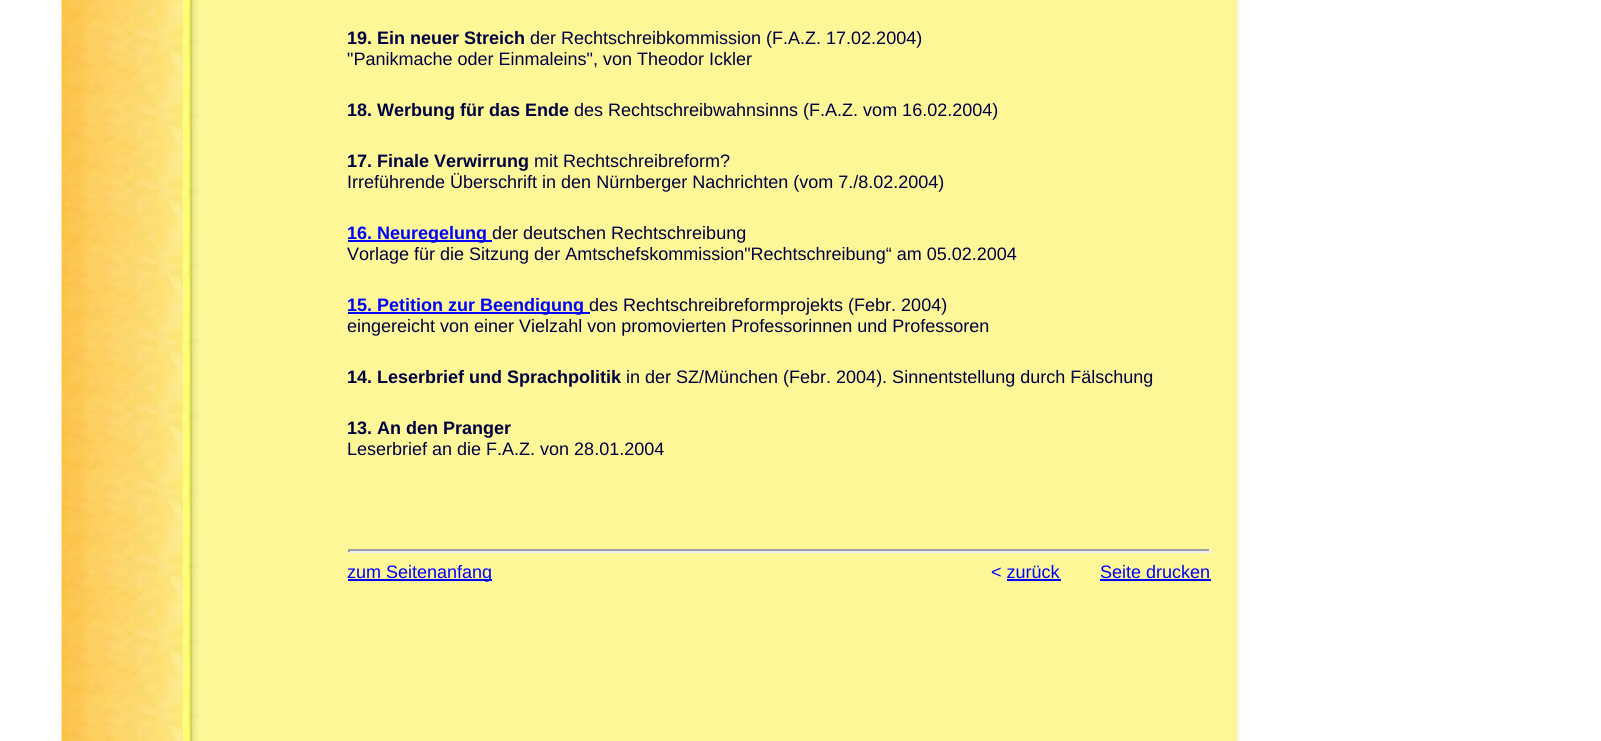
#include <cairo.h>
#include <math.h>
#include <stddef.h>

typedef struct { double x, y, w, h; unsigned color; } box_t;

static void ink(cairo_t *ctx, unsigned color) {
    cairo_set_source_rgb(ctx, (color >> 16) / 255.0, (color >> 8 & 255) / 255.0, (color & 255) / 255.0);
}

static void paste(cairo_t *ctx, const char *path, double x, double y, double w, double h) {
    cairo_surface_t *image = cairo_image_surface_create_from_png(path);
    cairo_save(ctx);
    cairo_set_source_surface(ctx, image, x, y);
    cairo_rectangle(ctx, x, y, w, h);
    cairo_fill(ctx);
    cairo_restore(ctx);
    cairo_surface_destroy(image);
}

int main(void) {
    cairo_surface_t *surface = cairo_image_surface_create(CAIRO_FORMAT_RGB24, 1601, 741);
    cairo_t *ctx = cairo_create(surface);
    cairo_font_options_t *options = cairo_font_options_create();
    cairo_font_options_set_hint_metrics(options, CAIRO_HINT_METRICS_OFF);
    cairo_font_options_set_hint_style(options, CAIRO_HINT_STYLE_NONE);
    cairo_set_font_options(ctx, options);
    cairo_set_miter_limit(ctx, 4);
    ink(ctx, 0xFFFFFF);
    cairo_paint(ctx);
    paste(ctx, "media/1.png", 61, 0, 1179, 741);
    cairo_select_font_face(ctx, "Liberation Sans", CAIRO_FONT_SLANT_NORMAL, CAIRO_FONT_WEIGHT_BOLD);
    cairo_set_font_size(ctx, 18);
    ink(ctx, 0x000040);
    cairo_move_to(ctx, 347, 44);
    cairo_show_text(ctx, "19. Ein neuer Streich");
    cairo_select_font_face(ctx, "Liberation Sans", CAIRO_FONT_SLANT_NORMAL, CAIRO_FONT_WEIGHT_NORMAL);
    cairo_move_to(ctx, 530, 44);
    cairo_show_text(ctx, "der Rechtschreibkommission (F.A.Z. 17.02.2004)");
    cairo_move_to(ctx, 347, 65);
    cairo_show_text(ctx, "\"Panikmache oder Einmaleins\", von Theodor Ickler");
    cairo_select_font_face(ctx, "Liberation Sans", CAIRO_FONT_SLANT_NORMAL, CAIRO_FONT_WEIGHT_BOLD);
    cairo_move_to(ctx, 347, 116);
    cairo_show_text(ctx, "18. Werbung für das Ende");
    cairo_select_font_face(ctx, "Liberation Sans", CAIRO_FONT_SLANT_NORMAL, CAIRO_FONT_WEIGHT_NORMAL);
    cairo_move_to(ctx, 574, 116);
    cairo_show_text(ctx, "des Rechtschreibwahnsinns (F.A.Z. vom 16.02.2004)");
    cairo_select_font_face(ctx, "Liberation Sans", CAIRO_FONT_SLANT_NORMAL, CAIRO_FONT_WEIGHT_BOLD);
    cairo_move_to(ctx, 347, 167);
    cairo_show_text(ctx, "17. Finale Verwirrung");
    cairo_select_font_face(ctx, "Liberation Sans", CAIRO_FONT_SLANT_NORMAL, CAIRO_FONT_WEIGHT_NORMAL);
    cairo_move_to(ctx, 534, 167);
    cairo_show_text(ctx, "mit Rechtschreibreform?");
    cairo_move_to(ctx, 347, 188);
    cairo_show_text(ctx, "Irreführende Überschrift in den Nürnberger Nachrichten (vom 7./8.02.2004)");
    ink(ctx, 0x0000FF);
    cairo_rectangle(ctx, 348, 240, 144, 2);
    cairo_fill(ctx);
    cairo_select_font_face(ctx, "Liberation Sans", CAIRO_FONT_SLANT_NORMAL, CAIRO_FONT_WEIGHT_BOLD);
    cairo_move_to(ctx, 347, 239);
    cairo_show_text(ctx, "16. Neuregelung");
    cairo_select_font_face(ctx, "Liberation Sans", CAIRO_FONT_SLANT_NORMAL, CAIRO_FONT_WEIGHT_NORMAL);
    ink(ctx, 0x000040);
    cairo_move_to(ctx, 492, 239);
    cairo_show_text(ctx, "der deutschen Rechtschreibung");
    cairo_move_to(ctx, 347, 260);
    cairo_show_text(ctx, "Vorlage für die Sitzung der Amtschefskommission\"Rechtschreibung“ am 05.02.2004");
    ink(ctx, 0x0000FF);
    cairo_rectangle(ctx, 348, 312, 242, 2);
    cairo_fill(ctx);
    cairo_select_font_face(ctx, "Liberation Sans", CAIRO_FONT_SLANT_NORMAL, CAIRO_FONT_WEIGHT_BOLD);
    cairo_move_to(ctx, 347, 311);
    cairo_show_text(ctx, "15. Petition zur Beendigung");
    cairo_select_font_face(ctx, "Liberation Sans", CAIRO_FONT_SLANT_NORMAL, CAIRO_FONT_WEIGHT_NORMAL);
    ink(ctx, 0x000040);
    cairo_move_to(ctx, 589, 311);
    cairo_show_text(ctx, "des Rechtschreibreformprojekts (Febr. 2004)");
    cairo_move_to(ctx, 347, 332);
    cairo_show_text(ctx, "eingereicht von einer Vielzahl von promovierten Professorinnen und Professoren");
    cairo_select_font_face(ctx, "Liberation Sans", CAIRO_FONT_SLANT_NORMAL, CAIRO_FONT_WEIGHT_BOLD);
    cairo_move_to(ctx, 347, 383);
    cairo_show_text(ctx, "14. Leserbrief und Sprachpolitik");
    cairo_select_font_face(ctx, "Liberation Sans", CAIRO_FONT_SLANT_NORMAL, CAIRO_FONT_WEIGHT_NORMAL);
    cairo_move_to(ctx, 626, 383);
    cairo_show_text(ctx, "in der SZ/München (Febr. 2004). Sinnentstellung durch Fälschung");
    cairo_select_font_face(ctx, "Liberation Sans", CAIRO_FONT_SLANT_NORMAL, CAIRO_FONT_WEIGHT_BOLD);
    cairo_move_to(ctx, 347, 434);
    cairo_show_text(ctx, "13. An den Pranger");
    cairo_select_font_face(ctx, "Liberation Sans", CAIRO_FONT_SLANT_NORMAL, CAIRO_FONT_WEIGHT_NORMAL);
    cairo_move_to(ctx, 347, 455);
    cairo_show_text(ctx, "Leserbrief an die F.A.Z. von 28.01.2004");
    {
        static const box_t items[] = {
            {348, 549, 863, 2, 0x9F9F9F},
            {1209, 549, 2, 3, 0xEEEEEE},
            {348, 551, 863, 2, 0xEEEEEE},
            {348, 549, 2, 3, 0x9F9F9F},
            {348, 579, 144, 2, 0x0000FF},
        };
        for (size_t i = 0; i < sizeof items / sizeof *items; i++) {
            ink(ctx, items[i].color);
            cairo_rectangle(ctx, items[i].x, items[i].y, items[i].w, items[i].h);
            cairo_fill(ctx);
        }
    }
    cairo_move_to(ctx, 347, 578);
    cairo_show_text(ctx, "zum Seitenanfang");
    cairo_move_to(ctx, 991, 578);
    cairo_show_text(ctx, "< zurück");
    cairo_rectangle(ctx, 1007, 579, 54, 2);
    cairo_fill(ctx);
    cairo_move_to(ctx, 1100, 578);
    cairo_show_text(ctx, "Seite drucken");
    cairo_rectangle(ctx, 1100, 579, 111, 2);
    cairo_fill(ctx);
    cairo_surface_write_to_png(surface, "image.png");
    cairo_font_options_destroy(options);
    cairo_destroy(ctx);
    cairo_surface_destroy(surface);
    return 0;
}
